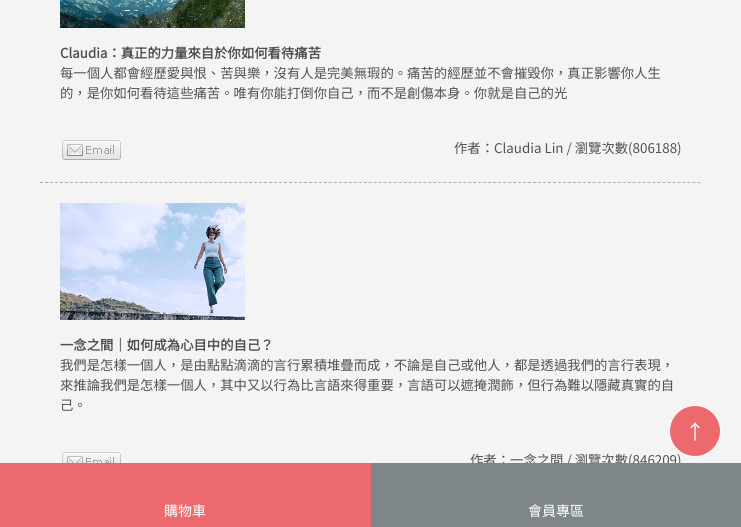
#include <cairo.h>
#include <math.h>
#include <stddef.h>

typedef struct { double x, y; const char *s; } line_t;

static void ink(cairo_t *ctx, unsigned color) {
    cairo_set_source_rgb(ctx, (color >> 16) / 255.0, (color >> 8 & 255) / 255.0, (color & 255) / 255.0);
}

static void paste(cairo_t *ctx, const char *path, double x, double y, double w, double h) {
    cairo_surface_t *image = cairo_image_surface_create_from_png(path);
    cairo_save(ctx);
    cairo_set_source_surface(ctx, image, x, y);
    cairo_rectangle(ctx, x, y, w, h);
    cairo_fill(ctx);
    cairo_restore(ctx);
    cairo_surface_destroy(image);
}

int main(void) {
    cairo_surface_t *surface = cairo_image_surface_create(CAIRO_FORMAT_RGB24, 741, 527);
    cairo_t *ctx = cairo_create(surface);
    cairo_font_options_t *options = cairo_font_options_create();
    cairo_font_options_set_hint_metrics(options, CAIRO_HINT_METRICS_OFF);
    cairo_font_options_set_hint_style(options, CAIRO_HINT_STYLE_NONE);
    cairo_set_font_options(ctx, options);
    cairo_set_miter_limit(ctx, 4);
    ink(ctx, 0xF4F4F4);
    cairo_paint(ctx);
    cairo_new_path(ctx);
    cairo_move_to(ctx, 40, 182.5);
    cairo_line_to(ctx, 701, 182.5);
    ink(ctx, 0xB0AFAF);
    cairo_set_line_width(ctx, 1);
    cairo_set_dash(ctx, (double[]){3, 1.98}, 2, 0);
    cairo_stroke(ctx);
    paste(ctx, "media/1.png", 60, 0, 185, 28);
    cairo_select_font_face(ctx, "Noto Sans TC", CAIRO_FONT_SLANT_NORMAL, CAIRO_FONT_WEIGHT_BOLD);
    cairo_set_font_size(ctx, 13.35);
    ink(ctx, 0x525150);
    cairo_move_to(ctx, 60, 58);
    cairo_show_text(ctx, "Claudia：真正的力量來自於你如何看待痛苦");
    cairo_select_font_face(ctx, "Noto Sans TC Thin", CAIRO_FONT_SLANT_NORMAL, CAIRO_FONT_WEIGHT_NORMAL);
    cairo_move_to(ctx, 60, 78);
    cairo_show_text(ctx, "每一個人都會經歷愛與恨、苦與樂，沒有人是完美無瑕的。痛苦的經歷並不會摧毀你，真正影響你人生");
    cairo_move_to(ctx, 60, 98);
    cairo_show_text(ctx, "的，是你如何看待這些痛苦。唯有你能打倒你自己，而不是創傷本身。你就是自己的光");
    paste(ctx, "media/2.png", 62, 140, 59, 20);
    cairo_move_to(ctx, 454, 153);
    cairo_show_text(ctx, "作者：Claudia Lin / 瀏覽次數(806188)");
    paste(ctx, "media/3.png", 60, 203, 185, 117);
    cairo_select_font_face(ctx, "Noto Sans TC", CAIRO_FONT_SLANT_NORMAL, CAIRO_FONT_WEIGHT_BOLD);
    cairo_move_to(ctx, 60, 350);
    cairo_show_text(ctx, "一念之間｜如何成為心目中的自己？");
    cairo_select_font_face(ctx, "Noto Sans TC Thin", CAIRO_FONT_SLANT_NORMAL, CAIRO_FONT_WEIGHT_NORMAL);
    {
        static const line_t items[] = {
            {60, 370, "我們是怎樣一個人，是由點點滴滴的言行累積堆疊而成，不論是自己或他人，都是透過我們的言行表現，"},
            {60, 390, "來推論我們是怎樣一個人，其中又以行為比言語來得重要，言語可以遮掩潤飾，但行為難以隱藏真實的自"},
            {60, 410, "己。"},
        };
        for (size_t i = 0; i < sizeof items / sizeof *items; i++) {
            cairo_move_to(ctx, items[i].x, items[i].y);
            cairo_show_text(ctx, items[i].s);
        }
    }
    paste(ctx, "media/4.png", 62, 452, 59, 11);
    cairo_move_to(ctx, 470, 465);
    cairo_show_text(ctx, "作者：一念之間 / 瀏覽次數(846209)");
    ink(ctx, 0xEC6A6D);
    cairo_new_path(ctx);
    cairo_arc(ctx, 695, 431, 25.5, 0, 2 * M_PI);
    cairo_fill_preserve(ctx);
    ink(ctx, 0xFFFFFF);
    cairo_set_dash(ctx, NULL, 0, 0);
    cairo_stroke(ctx);
    cairo_set_font_size(ctx, 20);
    cairo_move_to(ctx, 685, 439);
    cairo_show_text(ctx, "↑");
    ink(ctx, 0xEC6A6D);
    cairo_rectangle(ctx, 0, 463, 371, 64);
    cairo_fill(ctx);
    cairo_set_font_size(ctx, 14);
    ink(ctx, 0xFFFFFF);
    cairo_move_to(ctx, 164, 516);
    cairo_show_text(ctx, "購物車");
    ink(ctx, 0x7E8689);
    cairo_rectangle(ctx, 371, 463, 370, 64);
    cairo_fill(ctx);
    ink(ctx, 0xFFFFFF);
    cairo_move_to(ctx, 528, 516);
    cairo_show_text(ctx, "會員專區");
    cairo_surface_write_to_png(surface, "image.png");
    cairo_font_options_destroy(options);
    cairo_destroy(ctx);
    cairo_surface_destroy(surface);
    return 0;
}
